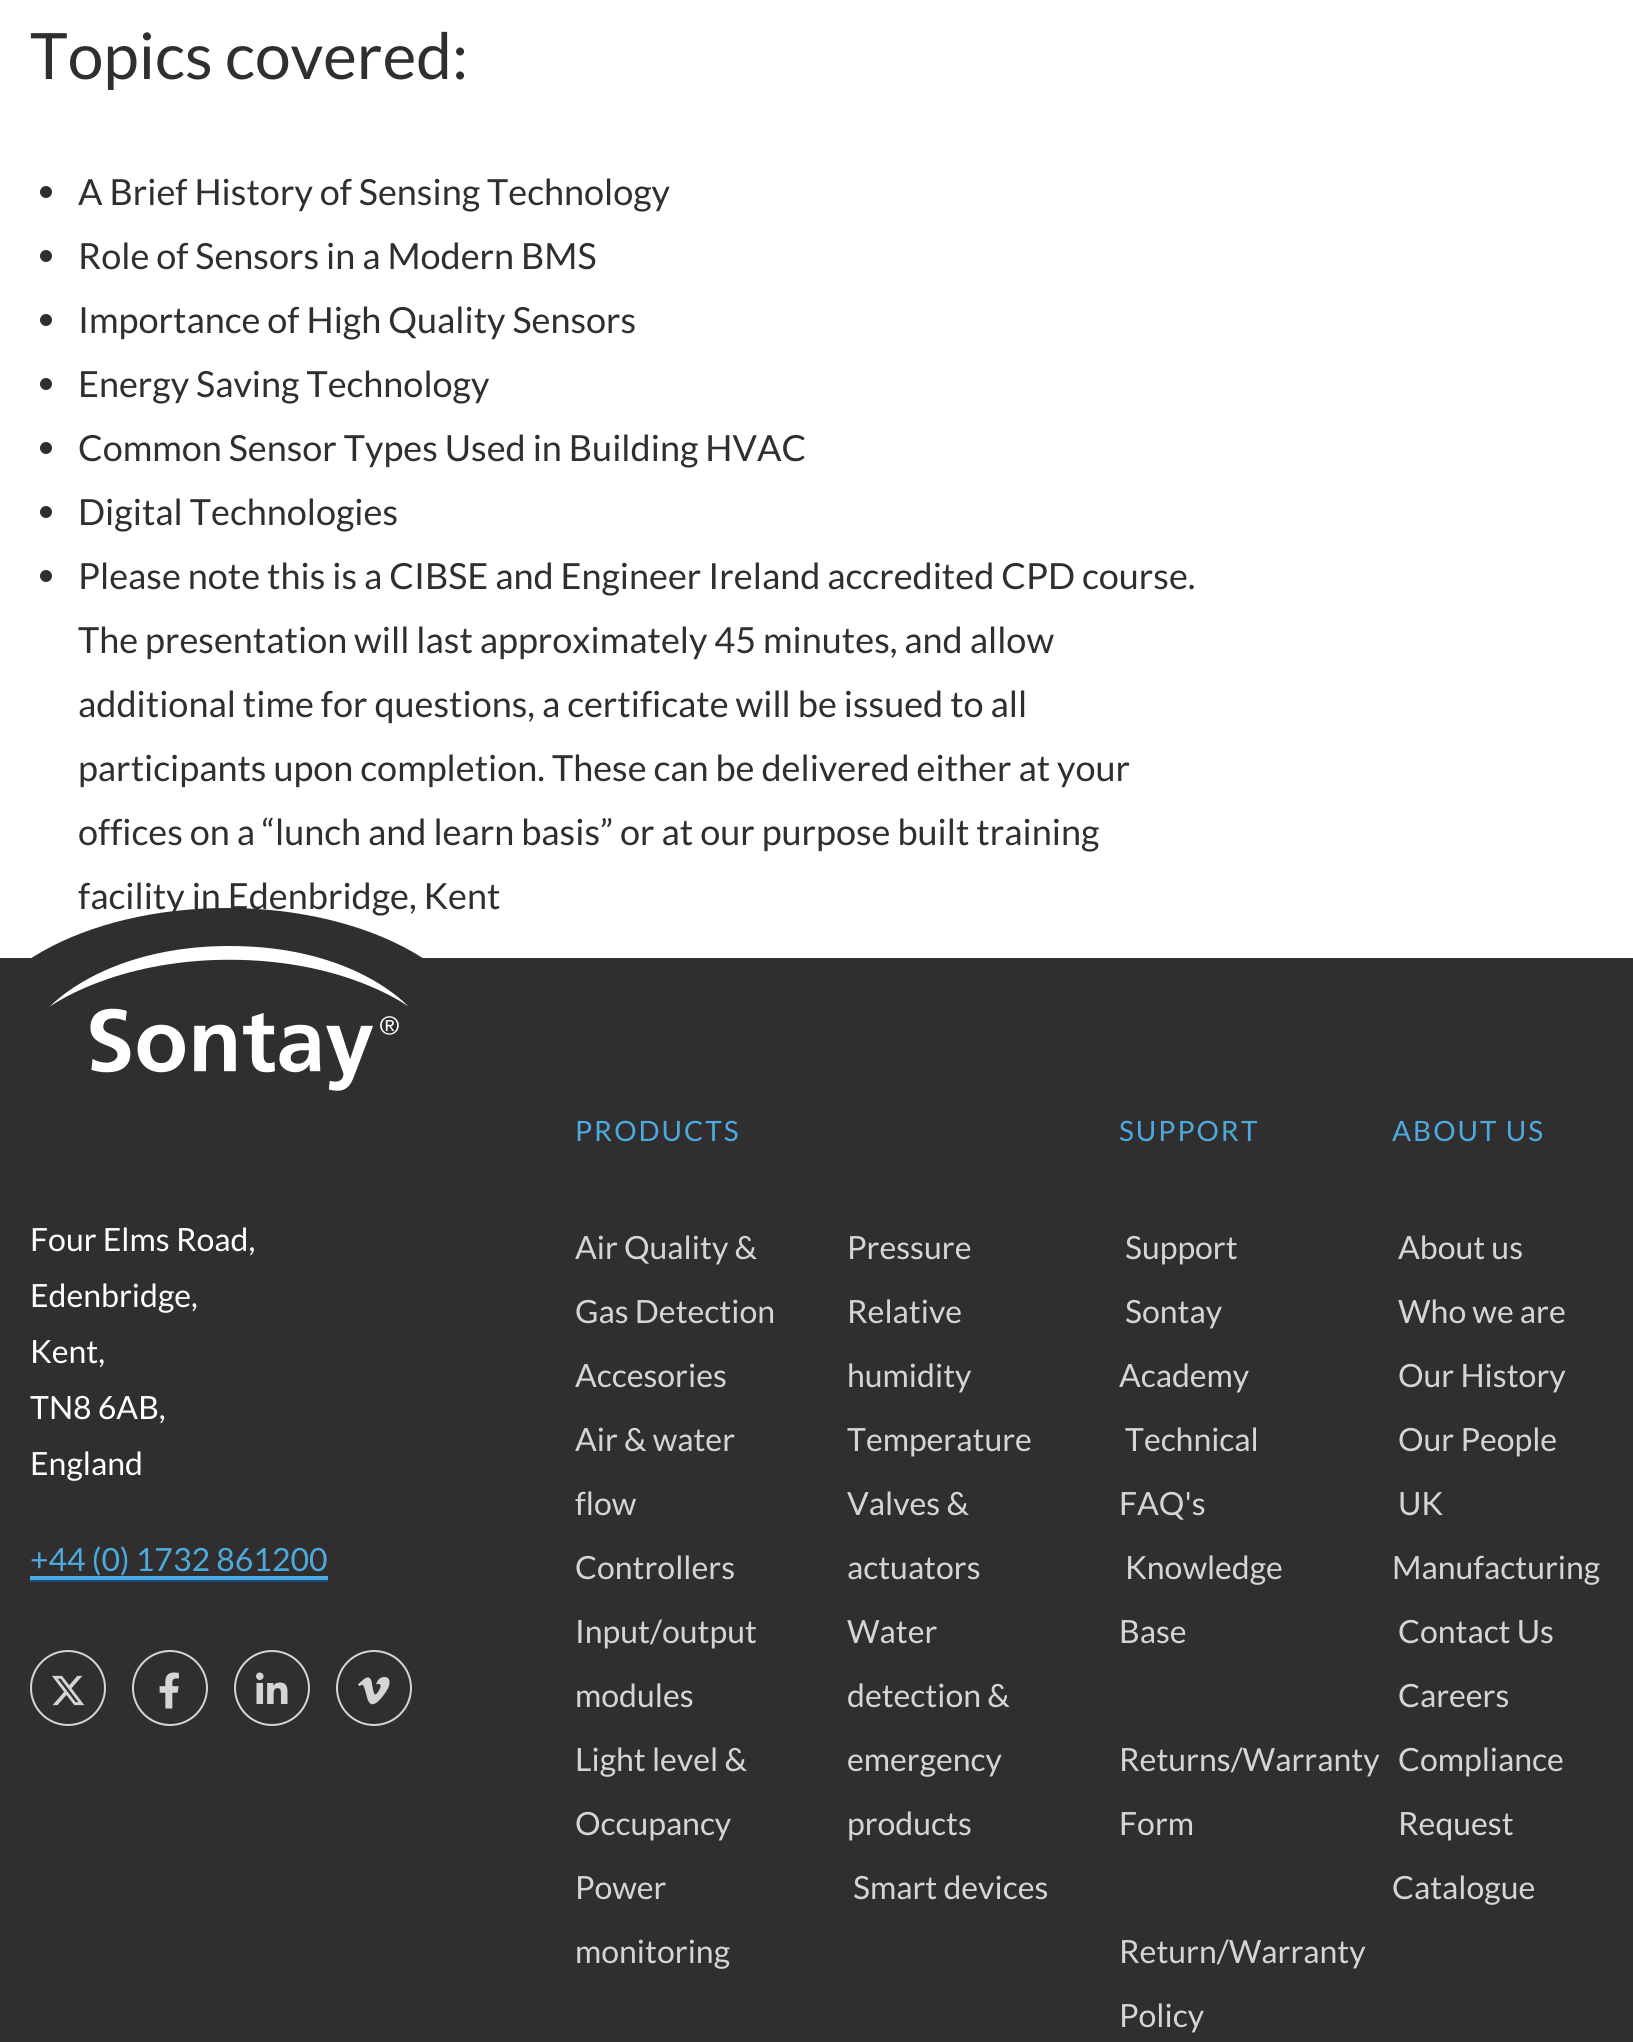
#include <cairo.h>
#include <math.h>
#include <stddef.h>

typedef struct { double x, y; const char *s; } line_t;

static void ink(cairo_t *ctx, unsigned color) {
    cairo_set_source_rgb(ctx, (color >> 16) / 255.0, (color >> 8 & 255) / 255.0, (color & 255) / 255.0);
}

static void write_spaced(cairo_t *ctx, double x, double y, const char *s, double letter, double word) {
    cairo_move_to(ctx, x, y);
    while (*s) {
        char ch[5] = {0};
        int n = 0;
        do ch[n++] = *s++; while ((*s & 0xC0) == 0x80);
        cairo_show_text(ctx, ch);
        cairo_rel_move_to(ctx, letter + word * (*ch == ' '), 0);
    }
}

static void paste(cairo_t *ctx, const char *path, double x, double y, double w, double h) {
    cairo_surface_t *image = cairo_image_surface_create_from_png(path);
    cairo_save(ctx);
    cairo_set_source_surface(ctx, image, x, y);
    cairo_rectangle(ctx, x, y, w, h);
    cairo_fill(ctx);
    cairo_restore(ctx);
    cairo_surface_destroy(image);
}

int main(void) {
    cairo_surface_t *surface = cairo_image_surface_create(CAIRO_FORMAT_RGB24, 1633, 2042);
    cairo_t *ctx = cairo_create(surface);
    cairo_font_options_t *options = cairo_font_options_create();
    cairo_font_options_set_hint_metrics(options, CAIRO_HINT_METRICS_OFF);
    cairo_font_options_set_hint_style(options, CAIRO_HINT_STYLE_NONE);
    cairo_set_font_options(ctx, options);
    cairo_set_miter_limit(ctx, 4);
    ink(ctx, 0xFFFFFF);
    cairo_paint(ctx);
    cairo_select_font_face(ctx, "Lato", CAIRO_FONT_SLANT_NORMAL, CAIRO_FONT_WEIGHT_NORMAL);
    cairo_set_font_size(ctx, 64);
    ink(ctx, 0x312E2F);
    cairo_move_to(ctx, 30, 79);
    cairo_show_text(ctx, "Topics covered:");
    cairo_new_path(ctx);
    cairo_arc(ctx, 46, 192, 6, 0, 2 * M_PI);
    cairo_fill(ctx);
    cairo_set_font_size(ctx, 36);
    cairo_move_to(ctx, 78, 205);
    cairo_show_text(ctx, "A Brief History of Sensing Technology");
    cairo_new_path(ctx);
    cairo_arc(ctx, 46, 256, 6, 0, 2 * M_PI);
    cairo_fill(ctx);
    cairo_move_to(ctx, 78, 269);
    cairo_show_text(ctx, "Role of Sensors in a Modern BMS");
    cairo_new_path(ctx);
    cairo_arc(ctx, 46, 320, 6, 0, 2 * M_PI);
    cairo_fill(ctx);
    cairo_move_to(ctx, 78, 333);
    cairo_show_text(ctx, "Importance of High Quality Sensors");
    cairo_new_path(ctx);
    cairo_arc(ctx, 46, 384, 6, 0, 2 * M_PI);
    cairo_fill(ctx);
    cairo_move_to(ctx, 78, 397);
    cairo_show_text(ctx, "Energy Saving Technology");
    cairo_new_path(ctx);
    cairo_arc(ctx, 46, 448, 6, 0, 2 * M_PI);
    cairo_fill(ctx);
    cairo_move_to(ctx, 78, 461);
    cairo_show_text(ctx, "Common Sensor Types Used in Building HVAC");
    cairo_new_path(ctx);
    cairo_arc(ctx, 46, 512, 6, 0, 2 * M_PI);
    cairo_fill(ctx);
    cairo_move_to(ctx, 78, 525);
    cairo_show_text(ctx, "Digital Technologies");
    cairo_new_path(ctx);
    cairo_arc(ctx, 46, 576, 6, 0, 2 * M_PI);
    cairo_fill(ctx);
    {
        static const line_t items[] = {
            {78, 589, "Please note this is a CIBSE and Engineer Ireland accredited CPD course."},
            {78, 653, "The presentation will last approximately 45 minutes, and allow"},
            {78, 717, "additional time for questions, a certificate will be issued to all"},
            {78, 781, "participants upon completion. These can be delivered either at your"},
            {78, 845, "offices on a “lunch and learn basis” or at our purpose built training"},
            {78, 909, "facility in Edenbridge, Kent"},
        };
        for (size_t i = 0; i < sizeof items / sizeof *items; i++) {
            cairo_move_to(ctx, items[i].x, items[i].y);
            cairo_show_text(ctx, items[i].s);
        }
    }
    cairo_rectangle(ctx, 0, 958, 1633, 1084);
    cairo_fill(ctx);
    paste(ctx, "media/1.png", 31, 908, 392, 183);
    cairo_set_font_size(ctx, 32);
    ink(ctx, 0xFFFFFF);
    {
        static const line_t items[] = {
            {30, 1251, "Four Elms Road,"},
            {30, 1307, "Edenbridge,"},
            {30, 1363, "Kent,"},
            {30, 1419, "TN8 6AB,"},
            {30, 1475, "England"},
        };
        for (size_t i = 0; i < sizeof items / sizeof *items; i++) {
            cairo_move_to(ctx, items[i].x, items[i].y);
            cairo_show_text(ctx, items[i].s);
        }
    }
    ink(ctx, 0x4CAADE);
    cairo_move_to(ctx, 30, 1571);
    cairo_show_text(ctx, "+44 (0) 1732 861200");
    ink(ctx, 0x214A7B);
    cairo_rectangle(ctx, 30, 1580, 298, 2);
    cairo_fill(ctx);
    ink(ctx, 0x4CAADE);
    cairo_rectangle(ctx, 30, 1576, 298, 4);
    cairo_fill(ctx);
    cairo_arc(ctx, 68, 1688, 37, 0, 2 * M_PI);
    ink(ctx, 0xD6D5D5);
    cairo_stroke(ctx);
    paste(ctx, "media/2.png", 52, 1675, 33, 31);
    cairo_arc(ctx, 170, 1688, 37, 0, 2 * M_PI);
    cairo_stroke(ctx);
    paste(ctx, "media/3.png", 159, 1672, 20, 37);
    cairo_arc(ctx, 272, 1688, 37, 0, 2 * M_PI);
    cairo_stroke(ctx);
    paste(ctx, "media/4.png", 256, 1672, 32, 32);
    cairo_arc(ctx, 374, 1688, 37, 0, 2 * M_PI);
    cairo_stroke(ctx);
    paste(ctx, "media/5.png", 358, 1677, 32, 28);
    cairo_set_font_size(ctx, 28);
    ink(ctx, 0x4CAADE);
    write_spaced(ctx, 575, 1141, "PRODUCTS", 2, 0);
    cairo_set_font_size(ctx, 32);
    ink(ctx, 0xD6D5D5);
    {
        static const line_t items[] = {
            {575, 1259, "Air Quality &"},
            {575, 1323, "Gas Detection"},
            {575, 1387, "Accesories"},
            {575, 1451, "Air & water"},
            {575, 1515, "flow"},
            {575, 1579, "Controllers"},
            {575, 1643, "Input/output"},
            {575, 1707, "modules"},
            {575, 1771, "Light level &"},
            {575, 1835, "Occupancy"},
            {575, 1899, "Power"},
            {575, 1963, "monitoring"},
            {847, 1259, "Pressure"},
            {847, 1323, "Relative"},
            {847, 1387, "humidity"},
            {847, 1451, "Temperature"},
            {847, 1515, "Valves &"},
            {847, 1579, "actuators"},
            {847, 1643, "Water"},
            {847, 1707, "detection &"},
            {847, 1771, "emergency"},
            {847, 1835, "products"},
            {853, 1899, "Smart devices"},
        };
        for (size_t i = 0; i < sizeof items / sizeof *items; i++) {
            cairo_move_to(ctx, items[i].x, items[i].y);
            cairo_show_text(ctx, items[i].s);
        }
    }
    cairo_set_font_size(ctx, 28);
    ink(ctx, 0x4CAADE);
    write_spaced(ctx, 1119, 1141, "SUPPORT", 2, 0);
    cairo_set_font_size(ctx, 32);
    ink(ctx, 0xD6D5D5);
    {
        static const line_t items[] = {
            {1125, 1259, "Support"},
            {1125, 1323, "Sontay"},
            {1119, 1387, "Academy"},
            {1125, 1451, "Technical"},
            {1119, 1515, "FAQ's"},
            {1125, 1579, "Knowledge"},
            {1119, 1643, "Base"},
            {1119, 1771, "Returns/Warranty"},
            {1119, 1835, "Form"},
            {1119, 1963, "Return/Warranty"},
            {1119, 2027, "Policy"},
        };
        for (size_t i = 0; i < sizeof items / sizeof *items; i++) {
            cairo_move_to(ctx, items[i].x, items[i].y);
            cairo_show_text(ctx, items[i].s);
        }
    }
    cairo_set_font_size(ctx, 28);
    ink(ctx, 0x4CAADE);
    write_spaced(ctx, 1392, 1141, "ABOUT US", 2, 0);
    cairo_set_font_size(ctx, 32);
    ink(ctx, 0xD6D5D5);
    {
        static const line_t items[] = {
            {1398, 1259, "About us"},
            {1398, 1323, "Who we are"},
            {1398, 1387, "Our History"},
            {1398, 1451, "Our People"},
            {1398, 1515, "UK"},
            {1392, 1579, "Manufacturing"},
            {1398, 1643, "Contact Us"},
            {1398, 1707, "Careers"},
            {1398, 1771, "Compliance"},
            {1398, 1835, "Request"},
            {1392, 1899, "Catalogue"},
        };
        for (size_t i = 0; i < sizeof items / sizeof *items; i++) {
            cairo_move_to(ctx, items[i].x, items[i].y);
            cairo_show_text(ctx, items[i].s);
        }
    }
    cairo_surface_write_to_png(surface, "image.png");
    cairo_font_options_destroy(options);
    cairo_destroy(ctx);
    cairo_surface_destroy(surface);
    return 0;
}
